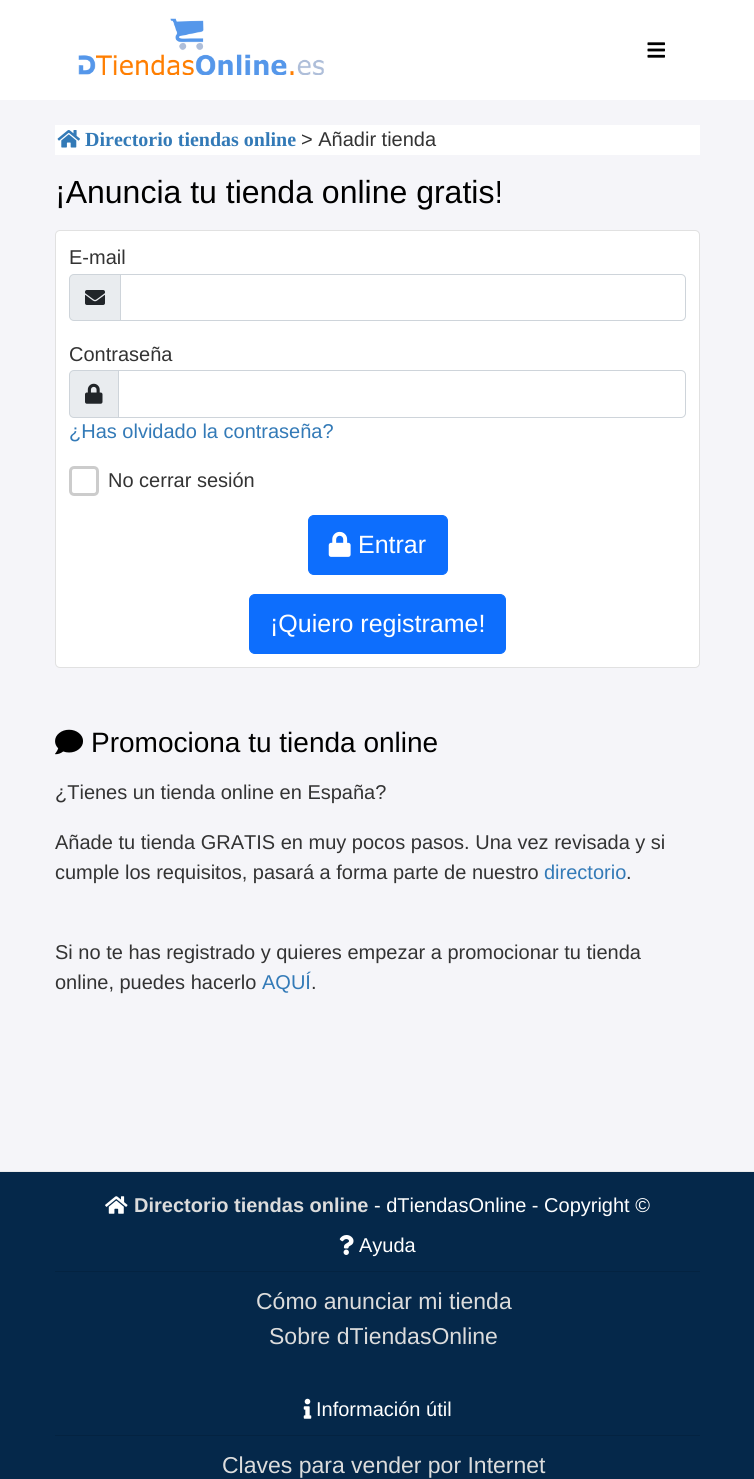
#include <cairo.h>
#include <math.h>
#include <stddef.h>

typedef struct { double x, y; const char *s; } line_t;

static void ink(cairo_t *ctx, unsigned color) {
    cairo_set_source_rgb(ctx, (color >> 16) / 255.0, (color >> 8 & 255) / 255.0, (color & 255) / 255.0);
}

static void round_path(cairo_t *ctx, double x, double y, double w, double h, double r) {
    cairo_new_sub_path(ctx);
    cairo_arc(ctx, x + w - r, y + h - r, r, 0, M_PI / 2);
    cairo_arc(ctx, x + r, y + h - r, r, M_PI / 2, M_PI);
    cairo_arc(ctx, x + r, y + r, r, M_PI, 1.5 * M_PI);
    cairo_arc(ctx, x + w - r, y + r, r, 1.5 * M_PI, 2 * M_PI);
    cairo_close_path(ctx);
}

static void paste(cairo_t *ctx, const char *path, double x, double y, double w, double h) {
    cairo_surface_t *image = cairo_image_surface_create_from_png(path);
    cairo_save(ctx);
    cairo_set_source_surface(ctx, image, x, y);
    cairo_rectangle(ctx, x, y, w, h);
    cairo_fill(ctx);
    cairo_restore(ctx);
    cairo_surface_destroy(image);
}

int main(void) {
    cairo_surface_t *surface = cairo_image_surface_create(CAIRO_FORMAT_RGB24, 754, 1479);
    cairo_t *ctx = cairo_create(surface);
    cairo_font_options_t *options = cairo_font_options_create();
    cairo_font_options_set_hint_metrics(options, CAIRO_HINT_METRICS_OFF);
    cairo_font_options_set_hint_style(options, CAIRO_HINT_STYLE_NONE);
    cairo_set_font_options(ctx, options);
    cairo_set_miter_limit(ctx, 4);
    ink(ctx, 0xF5F5F9);
    cairo_paint(ctx);
    ink(ctx, 0xFFFFFF);
    cairo_rectangle(ctx, 0, 0, 754, 100);
    cairo_fill(ctx);
    paste(ctx, "media/1.png", 78, 18, 246, 57);
    paste(ctx, "media/2.png", 647, 42, 18, 16);
    cairo_rectangle(ctx, 55, 125, 645, 30);
    cairo_fill(ctx);
    paste(ctx, "media/3.png", 57, 130, 23, 18);
    cairo_select_font_face(ctx, "Liberation Serif", CAIRO_FONT_SLANT_NORMAL, CAIRO_FONT_WEIGHT_BOLD);
    cairo_set_font_size(ctx, 20);
    ink(ctx, 0x337AB7);
    cairo_move_to(ctx, 85, 146);
    cairo_show_text(ctx, "Directorio tiendas online");
    cairo_select_font_face(ctx, "Liberation Sans", CAIRO_FONT_SLANT_NORMAL, CAIRO_FONT_WEIGHT_NORMAL);
    ink(ctx, 0x333333);
    cairo_move_to(ctx, 301, 146);
    cairo_show_text(ctx, "> Añadir tienda");
    cairo_set_font_size(ctx, 32);
    ink(ctx, 0x000000);
    cairo_move_to(ctx, 55, 203);
    cairo_show_text(ctx, "¡Anuncia tu tienda online gratis!");
    ink(ctx, 0xFFFFFF);
    round_path(ctx, 55, 230, 645, 438, 5);
    cairo_fill(ctx);
    round_path(ctx, 55.5, 230.5, 644, 437, 4.5);
    cairo_set_source_rgba(ctx, 0, 0, 0, 0.12);
    cairo_set_line_width(ctx, 1);
    cairo_stroke(ctx);
    cairo_set_font_size(ctx, 20);
    ink(ctx, 0x333333);
    cairo_move_to(ctx, 69, 264);
    cairo_show_text(ctx, "E-mail");
    ink(ctx, 0xE9ECEF);
    cairo_new_path(ctx);
    cairo_move_to(ctx, 74, 274.5);
    cairo_line_to(ctx, 120.5, 274.5);
    cairo_line_to(ctx, 120.5, 320.5);
    cairo_line_to(ctx, 74, 320.5);
    cairo_curve_to(ctx, 71.5, 320.5, 69.5, 318.5, 69.5, 316);
    cairo_line_to(ctx, 69.5, 279);
    cairo_curve_to(ctx, 69.5, 276.5, 71.5, 274.5, 74, 274.5);
    cairo_close_path(ctx);
    cairo_fill_preserve(ctx);
    ink(ctx, 0xCED4DA);
    cairo_stroke(ctx);
    paste(ctx, "media/4.png", 85, 290, 20, 15);
    cairo_new_path(ctx);
    cairo_move_to(ctx, 120.5, 274.5);
    cairo_line_to(ctx, 681, 274.5);
    cairo_curve_to(ctx, 683.5, 274.5, 685.5, 276.5, 685.5, 279);
    cairo_line_to(ctx, 685.5, 316);
    cairo_curve_to(ctx, 685.5, 318.5, 683.5, 320.5, 681, 320.5);
    cairo_line_to(ctx, 120.5, 320.5);
    cairo_close_path(ctx);
    cairo_stroke(ctx);
    ink(ctx, 0x333333);
    cairo_move_to(ctx, 69, 361);
    cairo_show_text(ctx, "Contraseña");
    ink(ctx, 0xE9ECEF);
    cairo_new_path(ctx);
    cairo_move_to(ctx, 74, 370.5);
    cairo_line_to(ctx, 118.5, 370.5);
    cairo_line_to(ctx, 118.5, 417.5);
    cairo_line_to(ctx, 74, 417.5);
    cairo_curve_to(ctx, 71.5, 417.5, 69.5, 415.5, 69.5, 413);
    cairo_line_to(ctx, 69.5, 375);
    cairo_curve_to(ctx, 69.5, 372.5, 71.5, 370.5, 74, 370.5);
    cairo_close_path(ctx);
    cairo_fill_preserve(ctx);
    ink(ctx, 0xCED4DA);
    cairo_stroke(ctx);
    paste(ctx, "media/5.png", 85, 383, 18, 21);
    cairo_new_path(ctx);
    cairo_move_to(ctx, 118.5, 370.5);
    cairo_line_to(ctx, 681, 370.5);
    cairo_curve_to(ctx, 683.5, 370.5, 685.5, 372.5, 685.5, 375);
    cairo_line_to(ctx, 685.5, 413);
    cairo_curve_to(ctx, 685.5, 415.5, 683.5, 417.5, 681, 417.5);
    cairo_line_to(ctx, 118.5, 417.5);
    cairo_close_path(ctx);
    cairo_stroke(ctx);
    ink(ctx, 0x337AB7);
    cairo_move_to(ctx, 69, 438);
    cairo_show_text(ctx, "¿Has olvidado la contraseña?");
    round_path(ctx, 70.5, 467.5, 27, 27, 3.5);
    ink(ctx, 0xCCCCCC);
    cairo_set_line_width(ctx, 3);
    cairo_stroke(ctx);
    ink(ctx, 0x333333);
    cairo_move_to(ctx, 108, 487);
    cairo_show_text(ctx, "No cerrar sesión");
    ink(ctx, 0x0D6EFD);
    round_path(ctx, 308.5, 515.5, 139, 59, 5.5);
    cairo_fill_preserve(ctx);
    cairo_set_line_width(ctx, 1);
    cairo_stroke(ctx);
    paste(ctx, "media/6.png", 328, 531, 23, 26);
    cairo_set_font_size(ctx, 25);
    ink(ctx, 0xFFFFFF);
    cairo_move_to(ctx, 358, 553);
    cairo_show_text(ctx, "Entrar");
    ink(ctx, 0x0D6EFD);
    round_path(ctx, 249.5, 594.5, 256, 59, 5.5);
    cairo_fill_preserve(ctx);
    cairo_stroke(ctx);
    ink(ctx, 0xFFFFFF);
    cairo_move_to(ctx, 270, 632);
    cairo_show_text(ctx, "¡Quiero registrame!");
    paste(ctx, "media/7.png", 55, 729, 28, 26);
    cairo_set_font_size(ctx, 28);
    ink(ctx, 0x000000);
    cairo_move_to(ctx, 91, 752);
    cairo_show_text(ctx, "Promociona tu tienda online");
    cairo_set_font_size(ctx, 20);
    ink(ctx, 0x333333);
    {
        static const line_t items[] = {
            {55, 799, "¿Tienes un tienda online en España?"},
            {55, 849, "Añade tu tienda GRATIS en muy pocos pasos. Una vez revisada y si"},
            {55, 879, "cumple los requisitos, pasará a forma parte de nuestro"},
        };
        for (size_t i = 0; i < sizeof items / sizeof *items; i++) {
            cairo_move_to(ctx, items[i].x, items[i].y);
            cairo_show_text(ctx, items[i].s);
        }
    }
    ink(ctx, 0x337AB7);
    cairo_move_to(ctx, 544, 879);
    cairo_show_text(ctx, "directorio");
    ink(ctx, 0x333333);
    {
        static const line_t items[] = {
            {626, 879, "."},
            {55, 959, "Si no te has registrado y quieres empezar a promocionar tu tienda"},
            {55, 989, "online, puedes hacerlo"},
        };
        for (size_t i = 0; i < sizeof items / sizeof *items; i++) {
            cairo_move_to(ctx, items[i].x, items[i].y);
            cairo_show_text(ctx, items[i].s);
        }
    }
    ink(ctx, 0x337AB7);
    cairo_move_to(ctx, 262, 989);
    cairo_show_text(ctx, "AQUÍ");
    ink(ctx, 0x333333);
    cairo_move_to(ctx, 311, 989);
    cairo_show_text(ctx, ".");
    ink(ctx, 0x05284A);
    cairo_rectangle(ctx, 0, 1172, 754, 307);
    cairo_fill(ctx);
    ink(ctx, 0xEAEAEA);
    cairo_rectangle(ctx, 0, 1171, 754, 1);
    cairo_fill(ctx);
    paste(ctx, "media/8.png", 105, 1196, 23, 18);
    cairo_select_font_face(ctx, "Liberation Sans", CAIRO_FONT_SLANT_NORMAL, CAIRO_FONT_WEIGHT_BOLD);
    ink(ctx, 0xDCDCDC);
    cairo_move_to(ctx, 134, 1212);
    cairo_show_text(ctx, "Directorio tiendas online");
    cairo_select_font_face(ctx, "Liberation Sans", CAIRO_FONT_SLANT_NORMAL, CAIRO_FONT_WEIGHT_NORMAL);
    ink(ctx, 0xFFFFFF);
    cairo_move_to(ctx, 374, 1212);
    cairo_show_text(ctx, "- dTiendasOnline - Copyright ©");
    ink(ctx, 0x042341);
    cairo_rectangle(ctx, 55, 1271, 645, 1);
    cairo_fill(ctx);
    paste(ctx, "media/9.png", 339, 1235, 15, 20);
    ink(ctx, 0xFFFFFF);
    cairo_move_to(ctx, 359, 1252);
    cairo_show_text(ctx, "Ayuda");
    cairo_set_font_size(ctx, 23);
    ink(ctx, 0xDCDCDC);
    cairo_move_to(ctx, 256, 1309);
    cairo_show_text(ctx, "Cómo anunciar mi tienda");
    cairo_move_to(ctx, 269, 1344);
    cairo_show_text(ctx, "Sobre dTiendasOnline");
    ink(ctx, 0x042341);
    cairo_rectangle(ctx, 55, 1435, 645, 1);
    cairo_fill(ctx);
    paste(ctx, "media/10.png", 303, 1398, 9, 21);
    cairo_set_font_size(ctx, 20);
    ink(ctx, 0xFFFFFF);
    cairo_move_to(ctx, 316, 1416);
    cairo_show_text(ctx, "Información útil");
    cairo_set_font_size(ctx, 23);
    ink(ctx, 0xDCDCDC);
    cairo_move_to(ctx, 222, 1473);
    cairo_show_text(ctx, "Claves para vender por Internet");
    cairo_surface_write_to_png(surface, "image.png");
    cairo_font_options_destroy(options);
    cairo_destroy(ctx);
    cairo_surface_destroy(surface);
    return 0;
}
